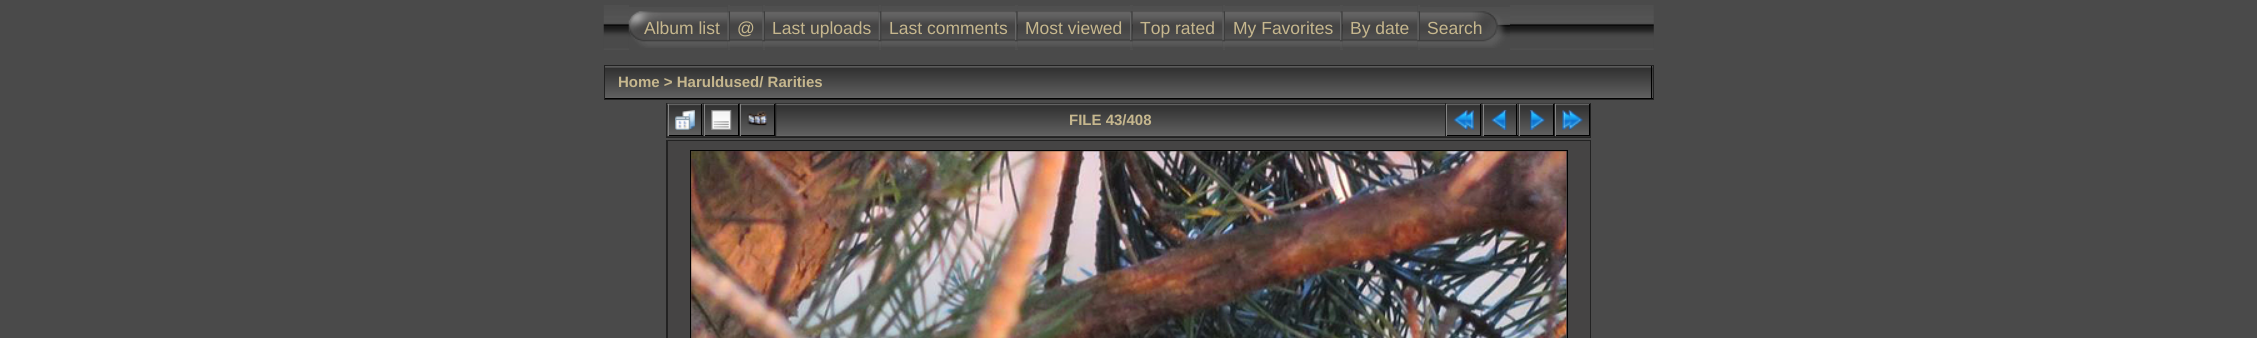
#include <cairo.h>
#include <math.h>
#include <stddef.h>

typedef struct { double x, y, w, h; unsigned color; } box_t;

static void ink(cairo_t *ctx, unsigned color) {
    cairo_set_source_rgb(ctx, (color >> 16) / 255.0, (color >> 8 & 255) / 255.0, (color & 255) / 255.0);
}

static void paste(cairo_t *ctx, const char *path, double x, double y, double w, double h) {
    cairo_surface_t *image = cairo_image_surface_create_from_png(path);
    cairo_save(ctx);
    cairo_set_source_surface(ctx, image, x, y);
    cairo_rectangle(ctx, x, y, w, h);
    cairo_fill(ctx);
    cairo_restore(ctx);
    cairo_surface_destroy(image);
}

int main(void) {
    cairo_surface_t *surface = cairo_image_surface_create(CAIRO_FORMAT_RGB24, 2257, 338);
    cairo_t *ctx = cairo_create(surface);
    cairo_font_options_t *options = cairo_font_options_create();
    cairo_font_options_set_hint_metrics(options, CAIRO_HINT_METRICS_OFF);
    cairo_font_options_set_hint_style(options, CAIRO_HINT_STYLE_NONE);
    cairo_set_font_options(ctx, options);
    cairo_set_miter_limit(ctx, 4);
    ink(ctx, 0x4A4A4A);
    cairo_paint(ctx);
    paste(ctx, "media/1.png", 603, 5, 1051, 45);
    ink(ctx, 0x4A4A4A);
    cairo_rectangle(ctx, 629, 5, 99, 45);
    cairo_fill(ctx);
    paste(ctx, "media/2.png", 628, 7, 100, 41);
    cairo_select_font_face(ctx, "Liberation Sans", CAIRO_FONT_SLANT_NORMAL, CAIRO_FONT_WEIGHT_NORMAL);
    cairo_set_font_size(ctx, 17.5);
    ink(ctx, 0xC6B78E);
    cairo_move_to(ctx, 644, 34);
    cairo_show_text(ctx, "Album list");
    paste(ctx, "media/3.png", 727, 11, 3, 37);
    ink(ctx, 0x4A4A4A);
    cairo_rectangle(ctx, 730, 5, 33, 45);
    cairo_fill(ctx);
    paste(ctx, "media/4.png", 730, 6, 33, 41);
    ink(ctx, 0xC6B78E);
    cairo_move_to(ctx, 737, 34);
    cairo_show_text(ctx, "@");
    paste(ctx, "media/5.png", 762, 11, 3, 37);
    ink(ctx, 0x4A4A4A);
    cairo_rectangle(ctx, 765, 5, 114, 45);
    cairo_fill(ctx);
    paste(ctx, "media/6.png", 765, 6, 114, 41);
    ink(ctx, 0xC6B78E);
    cairo_move_to(ctx, 772, 34);
    cairo_show_text(ctx, "Last uploads");
    ink(ctx, 0x4A4A4A);
    cairo_rectangle(ctx, 881, 5, 134, 45);
    cairo_fill(ctx);
    paste(ctx, "media/8.png", 881, 6, 134, 41);
    paste(ctx, "media/7.png", 878, 11, 4, 37);
    ink(ctx, 0xC6B78E);
    cairo_move_to(ctx, 889, 34);
    cairo_show_text(ctx, "Last comments");
    ink(ctx, 0x4A4A4A);
    cairo_rectangle(ctx, 1018, 5, 112, 45);
    cairo_fill(ctx);
    paste(ctx, "media/10.png", 1017, 6, 113, 41);
    paste(ctx, "media/9.png", 1015, 11, 3, 37);
    ink(ctx, 0xC6B78E);
    cairo_move_to(ctx, 1025, 34);
    cairo_show_text(ctx, "Most viewed");
    ink(ctx, 0x4A4A4A);
    cairo_rectangle(ctx, 1133, 5, 90, 45);
    cairo_fill(ctx);
    paste(ctx, "media/11.png", 1132, 6, 91, 41);
    paste(ctx, "media/9.png", 1130, 11, 3, 37);
    ink(ctx, 0xC6B78E);
    cairo_move_to(ctx, 1140, 34);
    cairo_show_text(ctx, "Top rated");
    paste(ctx, "media/5.png", 1222, 11, 3, 37);
    ink(ctx, 0x4A4A4A);
    cairo_rectangle(ctx, 1225, 5, 115, 45);
    cairo_fill(ctx);
    paste(ctx, "media/12.png", 1225, 6, 115, 41);
    ink(ctx, 0xC6B78E);
    cairo_move_to(ctx, 1233, 34);
    cairo_show_text(ctx, "My Favorites");
    ink(ctx, 0x4A4A4A);
    cairo_rectangle(ctx, 1343, 5, 75, 45);
    cairo_fill(ctx);
    paste(ctx, "media/13.png", 1342, 6, 76, 41);
    paste(ctx, "media/9.png", 1340, 11, 3, 37);
    ink(ctx, 0xC6B78E);
    cairo_move_to(ctx, 1350, 34);
    cairo_show_text(ctx, "By date");
    paste(ctx, "media/5.png", 1417, 11, 3, 37);
    ink(ctx, 0x4A4A4A);
    cairo_rectangle(ctx, 1420, 5, 90, 45);
    cairo_fill(ctx);
    paste(ctx, "media/14.png", 1420, 7, 90, 41);
    ink(ctx, 0xC6B78E);
    cairo_move_to(ctx, 1427, 34);
    cairo_show_text(ctx, "Search");
    ink(ctx, 0x222222);
    cairo_rectangle(ctx, 604, 65, 1050, 35);
    cairo_fill(ctx);
    ink(ctx, 0x3F3F3F);
    cairo_rectangle(ctx, 605, 66, 1048, 32);
    cairo_fill(ctx);
    paste(ctx, "media/15.png", 605, 66, 1048, 32);
    ink(ctx, 0x000000);
    cairo_rectangle(ctx, 1651, 66, 1, 33);
    cairo_fill(ctx);
    cairo_rectangle(ctx, 605, 98, 1048, 1);
    cairo_fill(ctx);
    cairo_select_font_face(ctx, "Liberation Sans", CAIRO_FONT_SLANT_NORMAL, CAIRO_FONT_WEIGHT_BOLD);
    cairo_set_font_size(ctx, 15);
    ink(ctx, 0xC6B78E);
    cairo_move_to(ctx, 618, 87);
    cairo_show_text(ctx, "Home > Haruldused/ Rarities");
    ink(ctx, 0x222222);
    cairo_rectangle(ctx, 666, 103, 925, 35);
    cairo_fill(ctx);
    paste(ctx, "media/16.png", 667, 103, 36, 34);
    ink(ctx, 0x3F3F3F);
    cairo_rectangle(ctx, 702, 104, 1, 31);
    cairo_fill(ctx);
    paste(ctx, "media/17.png", 667, 103, 36, 34);
    {
        static const box_t items[] = {
            {701, 104, 1, 32, 0x000000},
            {668, 135, 35, 1, 0x000000},
            {668, 104, 1, 32, 0x838383},
        };
        for (size_t i = 0; i < sizeof items / sizeof *items; i++) {
            ink(ctx, items[i].color);
            cairo_rectangle(ctx, items[i].x, items[i].y, items[i].w, items[i].h);
            cairo_fill(ctx);
        }
    }
    paste(ctx, "media/18.png", 675, 110, 20, 20);
    paste(ctx, "media/19.png", 703, 103, 36, 34);
    paste(ctx, "media/20.png", 703, 103, 36, 34);
    {
        static const box_t items[] = {
            {738, 104, 1, 32, 0x000000},
            {704, 135, 35, 1, 0x000000},
            {704, 104, 1, 32, 0x838383},
        };
        for (size_t i = 0; i < sizeof items / sizeof *items; i++) {
            ink(ctx, items[i].color);
            cairo_rectangle(ctx, items[i].x, items[i].y, items[i].w, items[i].h);
            cairo_fill(ctx);
        }
    }
    paste(ctx, "media/21.png", 711, 110, 21, 20);
    paste(ctx, "media/22.png", 740, 103, 35, 34);
    paste(ctx, "media/23.png", 740, 103, 35, 34);
    {
        static const box_t items[] = {
            {774, 104, 1, 32, 0x000000},
            {740, 135, 35, 1, 0x000000},
            {740, 104, 1, 32, 0x838383},
        };
        for (size_t i = 0; i < sizeof items / sizeof *items; i++) {
            ink(ctx, items[i].color);
            cairo_rectangle(ctx, items[i].x, items[i].y, items[i].w, items[i].h);
            cairo_fill(ctx);
        }
    }
    paste(ctx, "media/24.png", 747, 111, 21, 15);
    paste(ctx, "media/25.png", 776, 103, 669, 34);
    ink(ctx, 0xC6B78E);
    cairo_move_to(ctx, 1069, 125);
    cairo_show_text(ctx, "FILE 43/408");
    paste(ctx, "media/26.png", 1446, 103, 36, 34);
    paste(ctx, "media/27.png", 1446, 103, 36, 34);
    {
        static const box_t items[] = {
            {1480, 104, 1, 32, 0x000000},
            {1446, 135, 35, 1, 0x000000},
            {1446, 104, 1, 32, 0x838383},
        };
        for (size_t i = 0; i < sizeof items / sizeof *items; i++) {
            ink(ctx, items[i].color);
            cairo_rectangle(ctx, items[i].x, items[i].y, items[i].w, items[i].h);
            cairo_fill(ctx);
        }
    }
    paste(ctx, "media/28.png", 1453, 110, 21, 20);
    paste(ctx, "media/16.png", 1482, 103, 36, 34);
    ink(ctx, 0x3F3F3F);
    cairo_rectangle(ctx, 1517, 104, 1, 31);
    cairo_fill(ctx);
    paste(ctx, "media/17.png", 1482, 103, 36, 34);
    {
        static const box_t items[] = {
            {1516, 104, 1, 32, 0x000000},
            {1483, 135, 35, 1, 0x000000},
            {1483, 104, 1, 32, 0x838383},
        };
        for (size_t i = 0; i < sizeof items / sizeof *items; i++) {
            ink(ctx, items[i].color);
            cairo_rectangle(ctx, items[i].x, items[i].y, items[i].w, items[i].h);
            cairo_fill(ctx);
        }
    }
    paste(ctx, "media/29.png", 1491, 110, 16, 20);
    paste(ctx, "media/19.png", 1518, 103, 36, 34);
    paste(ctx, "media/20.png", 1518, 103, 36, 34);
    {
        static const box_t items[] = {
            {1553, 104, 1, 32, 0x000000},
            {1519, 135, 35, 1, 0x000000},
            {1519, 104, 1, 32, 0x838383},
        };
        for (size_t i = 0; i < sizeof items / sizeof *items; i++) {
            ink(ctx, items[i].color);
            cairo_rectangle(ctx, items[i].x, items[i].y, items[i].w, items[i].h);
            cairo_fill(ctx);
        }
    }
    paste(ctx, "media/30.png", 1529, 110, 17, 20);
    paste(ctx, "media/22.png", 1555, 103, 35, 34);
    paste(ctx, "media/23.png", 1555, 103, 35, 34);
    {
        static const box_t items[] = {
            {1589, 104, 1, 32, 0x000000},
            {1555, 135, 35, 1, 0x000000},
            {1555, 104, 1, 32, 0x838383},
        };
        for (size_t i = 0; i < sizeof items / sizeof *items; i++) {
            ink(ctx, items[i].color);
            cairo_rectangle(ctx, items[i].x, items[i].y, items[i].w, items[i].h);
            cairo_fill(ctx);
        }
    }
    paste(ctx, "media/31.png", 1562, 110, 21, 20);
    ink(ctx, 0x222222);
    cairo_rectangle(ctx, 666, 140, 925, 198);
    cairo_fill(ctx);
    ink(ctx, 0x454444);
    cairo_rectangle(ctx, 668, 141, 922, 197);
    cairo_fill(ctx);
    cairo_rectangle(ctx, 690.5, 150.5, 877, 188);
    ink(ctx, 0x000000);
    cairo_set_line_width(ctx, 1);
    cairo_stroke(ctx);
    paste(ctx, "media/32.png", 691, 151, 876, 187);
    cairo_surface_write_to_png(surface, "image.png");
    cairo_font_options_destroy(options);
    cairo_destroy(ctx);
    cairo_surface_destroy(surface);
    return 0;
}
